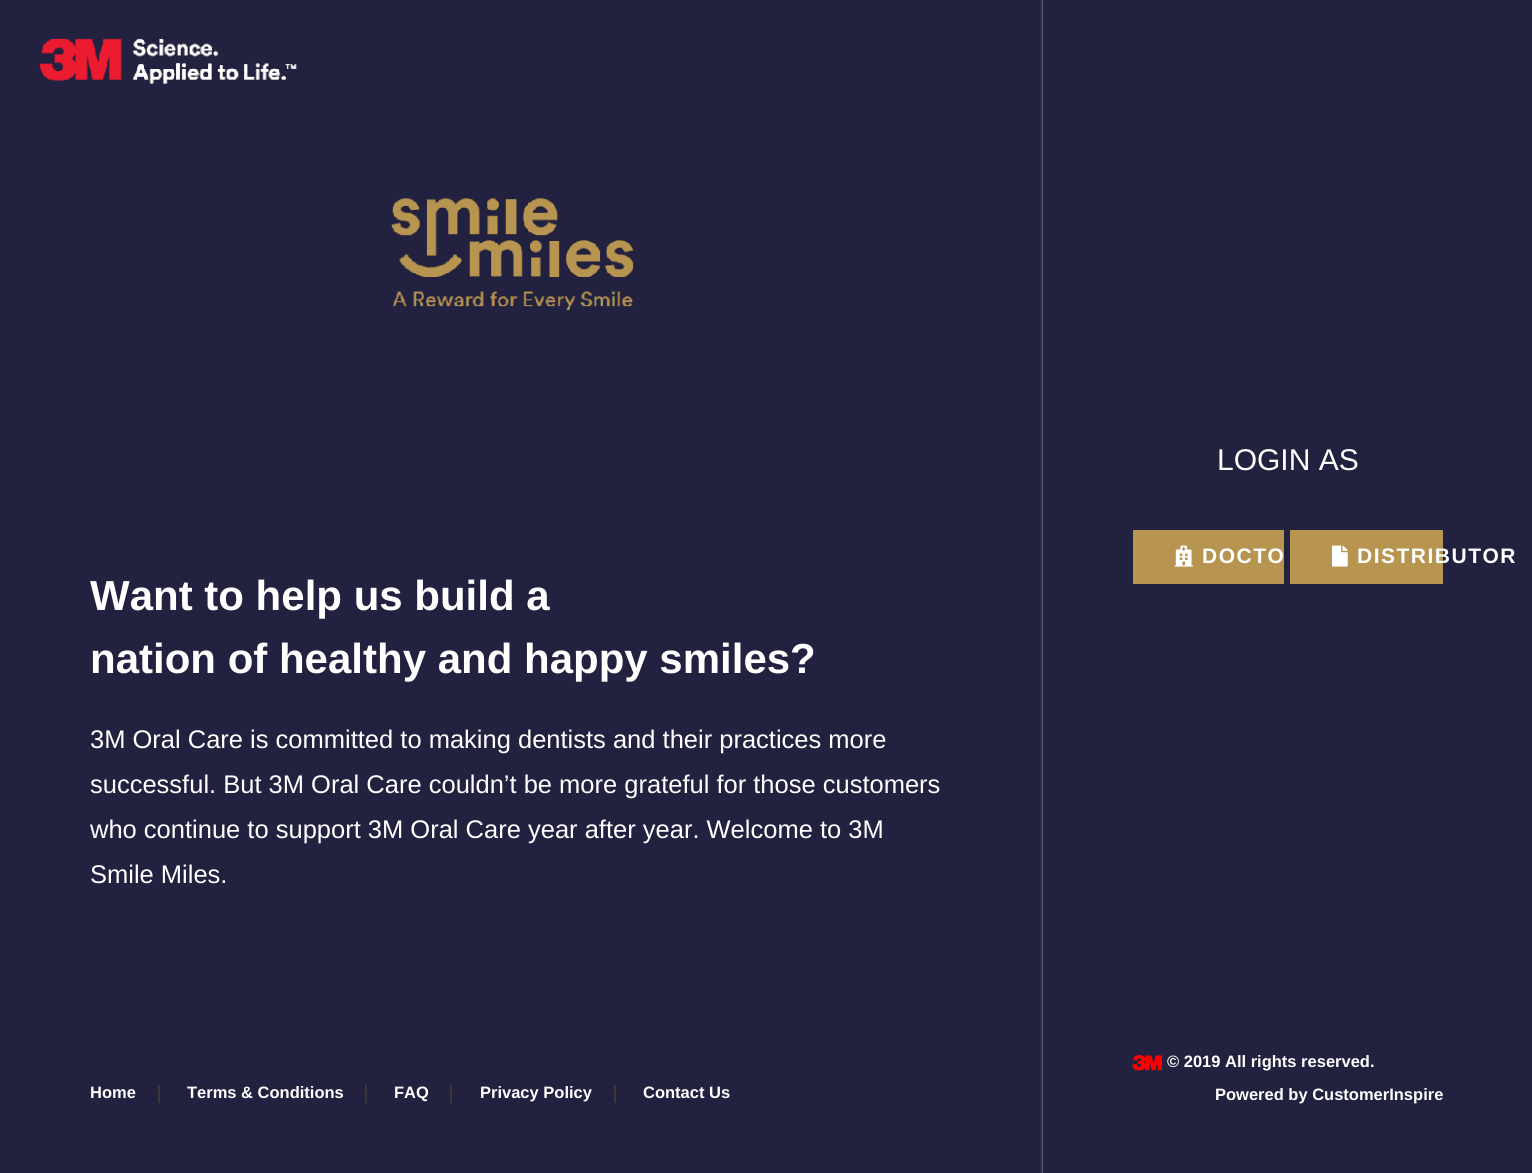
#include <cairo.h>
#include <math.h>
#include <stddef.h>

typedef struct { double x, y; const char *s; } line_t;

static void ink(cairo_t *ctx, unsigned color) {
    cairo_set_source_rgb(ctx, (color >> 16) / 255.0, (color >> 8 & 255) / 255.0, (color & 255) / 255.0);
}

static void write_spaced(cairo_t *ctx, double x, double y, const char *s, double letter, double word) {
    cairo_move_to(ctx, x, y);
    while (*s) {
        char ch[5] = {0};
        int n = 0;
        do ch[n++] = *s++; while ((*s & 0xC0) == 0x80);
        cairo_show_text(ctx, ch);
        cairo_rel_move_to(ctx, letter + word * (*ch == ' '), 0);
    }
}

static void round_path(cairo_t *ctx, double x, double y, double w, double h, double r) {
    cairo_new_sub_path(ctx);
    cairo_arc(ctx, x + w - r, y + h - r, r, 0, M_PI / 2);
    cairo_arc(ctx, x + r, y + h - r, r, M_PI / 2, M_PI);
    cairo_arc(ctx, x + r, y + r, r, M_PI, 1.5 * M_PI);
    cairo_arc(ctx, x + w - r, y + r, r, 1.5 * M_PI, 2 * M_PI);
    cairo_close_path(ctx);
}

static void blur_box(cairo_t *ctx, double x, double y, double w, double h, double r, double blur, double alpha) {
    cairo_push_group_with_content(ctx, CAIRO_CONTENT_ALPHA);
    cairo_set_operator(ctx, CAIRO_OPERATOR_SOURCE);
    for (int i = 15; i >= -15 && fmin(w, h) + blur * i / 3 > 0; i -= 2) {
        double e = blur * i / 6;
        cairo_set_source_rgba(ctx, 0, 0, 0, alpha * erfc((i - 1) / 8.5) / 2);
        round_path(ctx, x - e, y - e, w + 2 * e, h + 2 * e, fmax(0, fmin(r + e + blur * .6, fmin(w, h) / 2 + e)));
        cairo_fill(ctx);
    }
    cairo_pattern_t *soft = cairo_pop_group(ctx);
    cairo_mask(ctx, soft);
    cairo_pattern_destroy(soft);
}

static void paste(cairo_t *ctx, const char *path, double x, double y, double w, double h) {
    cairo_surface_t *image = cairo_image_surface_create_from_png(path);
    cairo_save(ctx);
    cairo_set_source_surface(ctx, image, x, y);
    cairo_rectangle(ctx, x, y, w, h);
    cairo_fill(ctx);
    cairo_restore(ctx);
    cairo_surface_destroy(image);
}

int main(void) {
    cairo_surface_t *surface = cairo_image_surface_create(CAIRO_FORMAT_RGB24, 1532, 1173);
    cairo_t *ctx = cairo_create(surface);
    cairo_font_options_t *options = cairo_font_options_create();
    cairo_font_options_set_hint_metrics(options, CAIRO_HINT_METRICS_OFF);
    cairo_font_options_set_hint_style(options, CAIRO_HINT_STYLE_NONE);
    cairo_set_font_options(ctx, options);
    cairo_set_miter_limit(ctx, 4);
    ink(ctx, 0x22213F);
    cairo_paint(ctx);
    paste(ctx, "media/1.png", 39, 38, 595, 272);
    cairo_select_font_face(ctx, "Liberation Sans", CAIRO_FONT_SLANT_NORMAL, CAIRO_FONT_WEIGHT_BOLD);
    cairo_set_font_size(ctx, 42);
    ink(ctx, 0xFFFFFF);
    cairo_move_to(ctx, 90, 610);
    cairo_show_text(ctx, "Want to help us build a");
    cairo_move_to(ctx, 90, 673);
    cairo_show_text(ctx, "nation of healthy and happy smiles?");
    cairo_select_font_face(ctx, "Liberation Sans", CAIRO_FONT_SLANT_NORMAL, CAIRO_FONT_WEIGHT_NORMAL);
    cairo_set_font_size(ctx, 25.5);
    {
        static const line_t items[] = {
            {90, 748, "3M Oral Care is committed to making dentists and their practices more"},
            {90, 793, "successful. But 3M Oral Care couldn’t be more grateful for those customers"},
            {90, 838, "who continue to support 3M Oral Care year after year. Welcome to 3M"},
            {90, 883, "Smile Miles."},
        };
        for (size_t i = 0; i < sizeof items / sizeof *items; i++) {
            cairo_move_to(ctx, items[i].x, items[i].y);
            cairo_show_text(ctx, items[i].s);
        }
    }
    cairo_select_font_face(ctx, "Liberation Sans", CAIRO_FONT_SLANT_NORMAL, CAIRO_FONT_WEIGHT_BOLD);
    cairo_set_font_size(ctx, 16.5);
    cairo_move_to(ctx, 90, 1098);
    cairo_show_text(ctx, "Home");
    ink(ctx, 0x403636);
    cairo_rectangle(ctx, 158, 1085, 2, 18);
    cairo_fill(ctx);
    ink(ctx, 0xFFFFFF);
    cairo_move_to(ctx, 187, 1098);
    cairo_show_text(ctx, "Terms & Conditions");
    ink(ctx, 0x403636);
    cairo_rectangle(ctx, 365, 1085, 2, 18);
    cairo_fill(ctx);
    ink(ctx, 0xFFFFFF);
    cairo_move_to(ctx, 394, 1098);
    cairo_show_text(ctx, "FAQ");
    ink(ctx, 0x403636);
    cairo_rectangle(ctx, 450, 1085, 2, 18);
    cairo_fill(ctx);
    ink(ctx, 0xFFFFFF);
    cairo_move_to(ctx, 480, 1098);
    cairo_show_text(ctx, "Privacy Policy");
    ink(ctx, 0x403636);
    cairo_rectangle(ctx, 614, 1085, 2, 18);
    cairo_fill(ctx);
    ink(ctx, 0xFFFFFF);
    cairo_move_to(ctx, 643, 1098);
    cairo_show_text(ctx, "Contact Us");
    cairo_save(ctx);
    cairo_rectangle(ctx, 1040, 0, 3, 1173);
    cairo_clip(ctx);
    ink(ctx, 0xB7B7B7);
    blur_box(ctx, 1043, 0, 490, 1173, 0, 1.5, 0.87);
    cairo_restore(ctx);
    cairo_select_font_face(ctx, "Liberation Sans", CAIRO_FONT_SLANT_NORMAL, CAIRO_FONT_WEIGHT_NORMAL);
    cairo_set_font_size(ctx, 30);
    cairo_move_to(ctx, 1217, 470);
    cairo_show_text(ctx, "LOGIN AS");
    ink(ctx, 0xB79450);
    cairo_rectangle(ctx, 1133, 530, 151, 54);
    cairo_fill(ctx);
    paste(ctx, "media/2.png", 1174, 545, 19, 22);
    cairo_select_font_face(ctx, "Liberation Sans", CAIRO_FONT_SLANT_NORMAL, CAIRO_FONT_WEIGHT_BOLD);
    cairo_set_font_size(ctx, 21);
    ink(ctx, 0xFFFFFF);
    write_spaced(ctx, 1202, 563, "DOCTO", 1.5, 0);
    ink(ctx, 0xB79450);
    cairo_rectangle(ctx, 1290, 530, 153, 54);
    cairo_fill(ctx);
    paste(ctx, "media/3.png", 1332, 545, 16, 22);
    ink(ctx, 0xFFFFFF);
    write_spaced(ctx, 1357, 563, "DISTRIBUTOR", 1.5, 0);
    paste(ctx, "media/4.png", 1132, 1055, 30, 16);
    cairo_set_font_size(ctx, 16.5);
    cairo_move_to(ctx, 1167, 1067);
    cairo_show_text(ctx, "© 2019 All rights reserved.");
    cairo_move_to(ctx, 1215, 1100);
    cairo_show_text(ctx, "Powered by CustomerInspire");
    cairo_surface_write_to_png(surface, "image.png");
    cairo_font_options_destroy(options);
    cairo_destroy(ctx);
    cairo_surface_destroy(surface);
    return 0;
}
